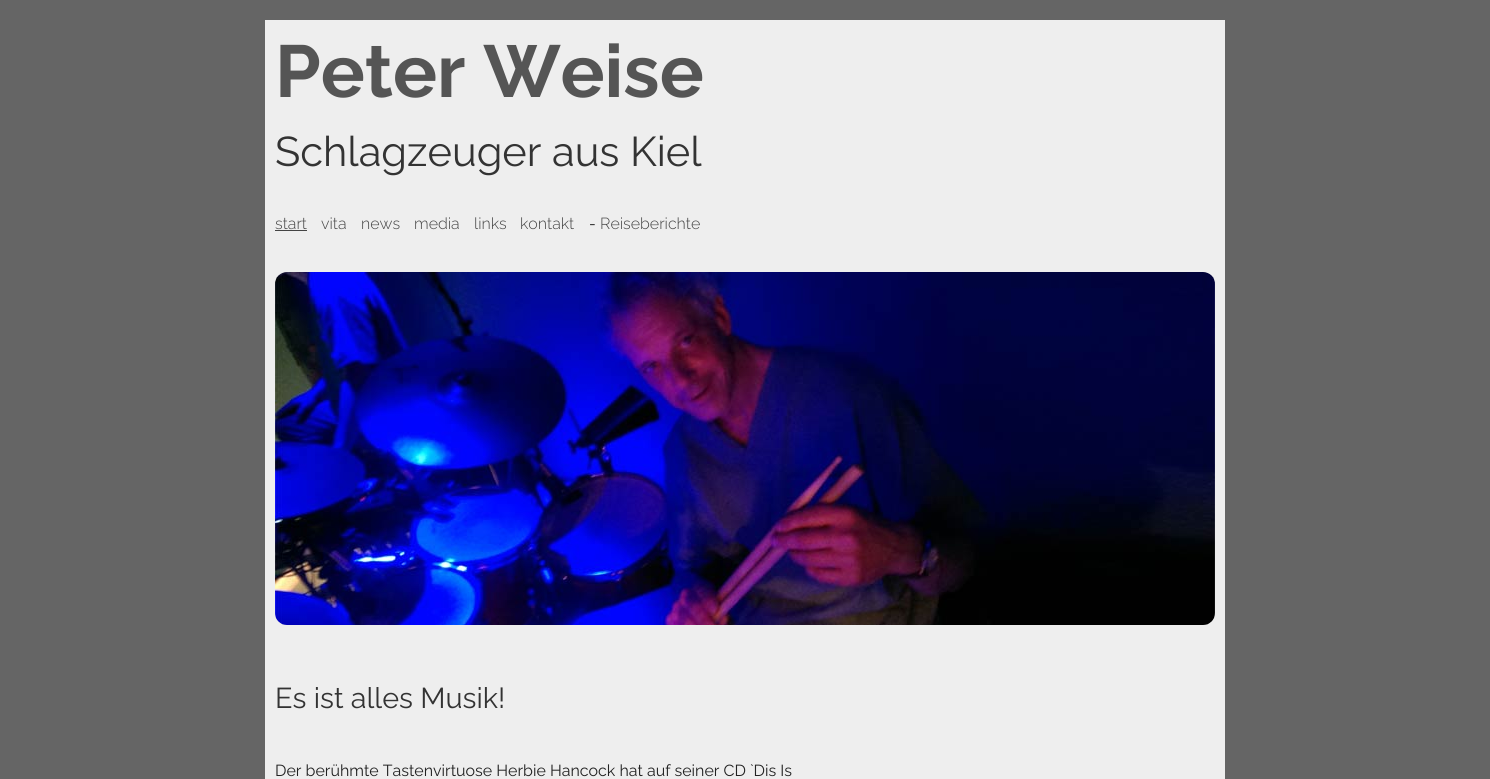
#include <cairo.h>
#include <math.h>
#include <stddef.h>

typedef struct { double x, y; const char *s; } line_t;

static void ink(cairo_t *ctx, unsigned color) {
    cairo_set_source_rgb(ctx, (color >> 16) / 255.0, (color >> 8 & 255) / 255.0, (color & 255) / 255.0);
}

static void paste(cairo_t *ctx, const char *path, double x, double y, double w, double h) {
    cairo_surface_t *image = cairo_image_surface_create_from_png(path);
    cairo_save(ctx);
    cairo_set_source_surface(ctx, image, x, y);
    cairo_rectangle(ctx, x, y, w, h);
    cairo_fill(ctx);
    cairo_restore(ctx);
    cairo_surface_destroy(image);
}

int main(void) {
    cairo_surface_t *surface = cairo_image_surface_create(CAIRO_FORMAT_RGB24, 1490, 779);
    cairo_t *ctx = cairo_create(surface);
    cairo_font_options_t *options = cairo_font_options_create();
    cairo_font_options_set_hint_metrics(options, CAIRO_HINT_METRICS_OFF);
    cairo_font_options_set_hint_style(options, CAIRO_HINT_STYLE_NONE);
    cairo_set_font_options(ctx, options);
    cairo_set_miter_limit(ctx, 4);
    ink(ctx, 0x656565);
    cairo_paint(ctx);
    ink(ctx, 0xEEEEEE);
    cairo_rectangle(ctx, 265, 20, 960, 759);
    cairo_fill(ctx);
    cairo_select_font_face(ctx, "Raleway Thin", CAIRO_FONT_SLANT_NORMAL, CAIRO_FONT_WEIGHT_NORMAL);
    cairo_set_font_size(ctx, 73.5);
    ink(ctx, 0x555555);
    cairo_move_to(ctx, 275, 97);
    cairo_show_text(ctx, "Peter Weise");
    cairo_select_font_face(ctx, "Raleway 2 Thin", CAIRO_FONT_SLANT_NORMAL, CAIRO_FONT_WEIGHT_NORMAL);
    cairo_set_font_size(ctx, 41.6);
    ink(ctx, 0x333333);
    cairo_move_to(ctx, 275, 166);
    cairo_show_text(ctx, "Schlagzeuger aus Kiel");
    cairo_select_font_face(ctx, "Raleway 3 Thin", CAIRO_FONT_SLANT_NORMAL, CAIRO_FONT_WEIGHT_NORMAL);
    cairo_set_font_size(ctx, 16);
    ink(ctx, 0x444444);
    cairo_move_to(ctx, 275, 229);
    cairo_show_text(ctx, "start");
    cairo_rectangle(ctx, 275, 230, 32, 1);
    cairo_fill(ctx);
    {
        static const line_t items[] = {
            {321, 229, "vita"},
            {361, 229, "news"},
            {414, 229, "media"},
            {474, 229, "links"},
            {520, 229, "kontakt"},
        };
        for (size_t i = 0; i < sizeof items / sizeof *items; i++) {
            cairo_move_to(ctx, items[i].x, items[i].y);
            cairo_show_text(ctx, items[i].s);
        }
    }
    cairo_select_font_face(ctx, "Raleway 2 Thin", CAIRO_FONT_SLANT_NORMAL, CAIRO_FONT_WEIGHT_NORMAL);
    ink(ctx, 0x222222);
    cairo_move_to(ctx, 589, 229);
    cairo_show_text(ctx, "-");
    cairo_select_font_face(ctx, "Raleway 3 Thin", CAIRO_FONT_SLANT_NORMAL, CAIRO_FONT_WEIGHT_NORMAL);
    ink(ctx, 0x444444);
    cairo_move_to(ctx, 600, 229);
    cairo_show_text(ctx, "Reiseberichte");
    paste(ctx, "media/1.png", 275, 272, 940, 353);
    cairo_select_font_face(ctx, "Raleway 2 Thin", CAIRO_FONT_SLANT_NORMAL, CAIRO_FONT_WEIGHT_NORMAL);
    cairo_set_font_size(ctx, 28.75);
    ink(ctx, 0x333333);
    cairo_move_to(ctx, 275, 708);
    cairo_show_text(ctx, "Es ist alles Musik!");
    cairo_set_font_size(ctx, 16);
    ink(ctx, 0x222222);
    cairo_move_to(ctx, 275, 776);
    cairo_show_text(ctx, "Der berühmte Tastenvirtuose Herbie Hancock hat auf seiner CD `Dis Is");
    cairo_surface_write_to_png(surface, "image.png");
    cairo_font_options_destroy(options);
    cairo_destroy(ctx);
    cairo_surface_destroy(surface);
    return 0;
}
